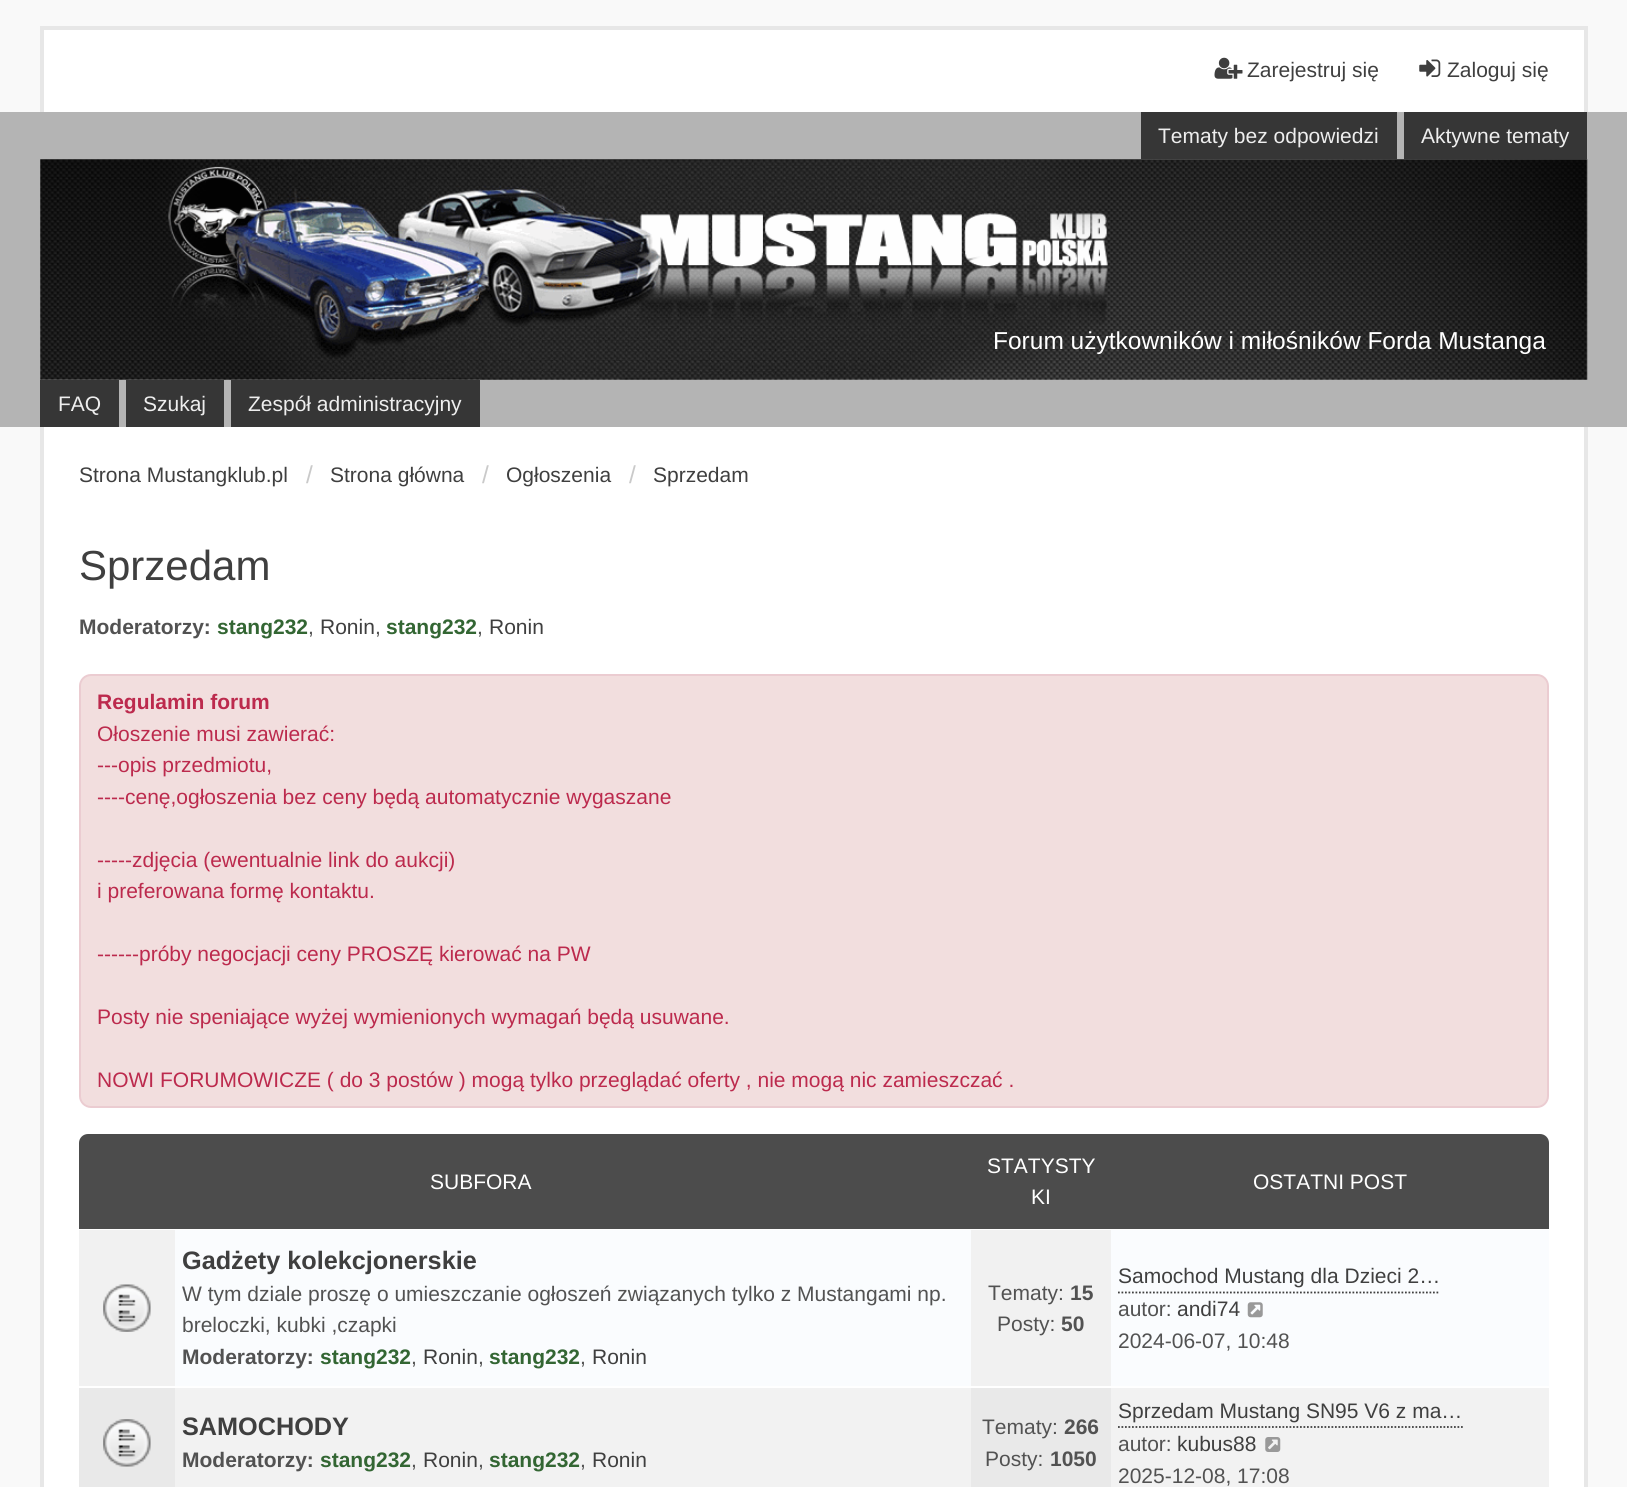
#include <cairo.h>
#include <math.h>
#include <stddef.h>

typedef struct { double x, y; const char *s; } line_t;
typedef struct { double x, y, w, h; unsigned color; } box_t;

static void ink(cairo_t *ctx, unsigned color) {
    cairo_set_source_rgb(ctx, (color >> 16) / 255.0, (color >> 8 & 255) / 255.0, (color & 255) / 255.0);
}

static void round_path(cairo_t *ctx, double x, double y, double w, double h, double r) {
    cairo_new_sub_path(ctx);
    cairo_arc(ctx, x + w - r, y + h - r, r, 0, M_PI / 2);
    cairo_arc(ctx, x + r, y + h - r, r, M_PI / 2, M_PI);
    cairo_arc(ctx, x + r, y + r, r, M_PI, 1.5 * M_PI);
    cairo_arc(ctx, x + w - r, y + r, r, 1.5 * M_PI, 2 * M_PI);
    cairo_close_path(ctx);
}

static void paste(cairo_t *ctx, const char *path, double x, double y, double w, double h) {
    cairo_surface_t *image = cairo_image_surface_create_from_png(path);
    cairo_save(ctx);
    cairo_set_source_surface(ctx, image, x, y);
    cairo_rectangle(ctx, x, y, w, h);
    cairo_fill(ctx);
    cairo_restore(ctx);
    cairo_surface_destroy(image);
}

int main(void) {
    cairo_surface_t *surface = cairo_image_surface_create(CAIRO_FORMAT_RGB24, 1627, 1487);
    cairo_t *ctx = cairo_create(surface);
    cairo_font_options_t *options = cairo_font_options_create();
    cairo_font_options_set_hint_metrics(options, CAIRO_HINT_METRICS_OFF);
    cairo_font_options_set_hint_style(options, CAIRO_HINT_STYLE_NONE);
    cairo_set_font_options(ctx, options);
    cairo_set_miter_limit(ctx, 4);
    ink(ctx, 0xF9F9F9);
    cairo_paint(ctx);
    {
        static const box_t items[] = {
            {44, 30, 1540, 82, 0xFFFFFF},
            {40, 26, 1547, 4, 0xE7E7E7},
            {1584, 26, 4, 86, 0xE7E7E7},
            {40, 26, 4, 86, 0xE7E7E7},
        };
        for (size_t i = 0; i < sizeof items / sizeof *items; i++) {
            ink(ctx, items[i].color);
            cairo_rectangle(ctx, items[i].x, items[i].y, items[i].w, items[i].h);
            cairo_fill(ctx);
        }
    }
    paste(ctx, "media/1.png", 1214, 57, 29, 22);
    cairo_select_font_face(ctx, "Liberation Sans", CAIRO_FONT_SLANT_NORMAL, CAIRO_FONT_WEIGHT_NORMAL);
    cairo_set_font_size(ctx, 21);
    ink(ctx, 0x3F3F3F);
    cairo_move_to(ctx, 1247, 77);
    cairo_show_text(ctx, "Zarejestruj się");
    paste(ctx, "media/2.png", 1419, 59, 22, 18);
    cairo_move_to(ctx, 1447, 77);
    cairo_show_text(ctx, "Zaloguj się");
    ink(ctx, 0xB4B4B4);
    cairo_rectangle(ctx, 0, 112, 1627, 315);
    cairo_fill(ctx);
    ink(ctx, 0x363636);
    cairo_rectangle(ctx, 1141, 112, 256, 47);
    cairo_fill(ctx);
    ink(ctx, 0xEEEEEE);
    cairo_move_to(ctx, 1158, 143);
    cairo_show_text(ctx, "Tematy bez odpowiedzi");
    ink(ctx, 0x363636);
    cairo_rectangle(ctx, 1404, 112, 183, 47);
    cairo_fill(ctx);
    ink(ctx, 0xEEEEEE);
    cairo_move_to(ctx, 1421, 143);
    cairo_show_text(ctx, "Aktywne tematy");
    paste(ctx, "media/3.png", 40, 159, 1548, 221);
    cairo_set_font_size(ctx, 24.5);
    ink(ctx, 0xFFFFFF);
    cairo_move_to(ctx, 993, 349);
    cairo_show_text(ctx, "Forum użytkowników i miłośników Forda Mustanga");
    ink(ctx, 0x363636);
    cairo_rectangle(ctx, 40, 380, 79, 47);
    cairo_fill(ctx);
    cairo_set_font_size(ctx, 21);
    ink(ctx, 0xEEEEEE);
    cairo_move_to(ctx, 58, 411);
    cairo_show_text(ctx, "FAQ");
    ink(ctx, 0x363636);
    cairo_rectangle(ctx, 126, 380, 98, 47);
    cairo_fill(ctx);
    ink(ctx, 0xEEEEEE);
    cairo_move_to(ctx, 143, 411);
    cairo_show_text(ctx, "Szukaj");
    ink(ctx, 0x363636);
    cairo_rectangle(ctx, 231, 380, 249, 47);
    cairo_fill(ctx);
    ink(ctx, 0xEEEEEE);
    cairo_move_to(ctx, 248, 411);
    cairo_show_text(ctx, "Zespół administracyjny");
    {
        static const box_t items[] = {
            {44, 427, 1540, 1060, 0xFFFFFF},
            {1584, 427, 4, 1060, 0xE7E7E7},
            {40, 427, 4, 1060, 0xE7E7E7},
        };
        for (size_t i = 0; i < sizeof items / sizeof *items; i++) {
            ink(ctx, items[i].color);
            cairo_rectangle(ctx, items[i].x, items[i].y, items[i].w, items[i].h);
            cairo_fill(ctx);
        }
    }
    ink(ctx, 0x3F3F3F);
    cairo_move_to(ctx, 79, 482);
    cairo_show_text(ctx, "Strona Mustangklub.pl");
    cairo_set_font_size(ctx, 24.5);
    ink(ctx, 0xCACACA);
    cairo_move_to(ctx, 306, 483);
    cairo_show_text(ctx, "/");
    cairo_set_font_size(ctx, 21);
    ink(ctx, 0x3F3F3F);
    cairo_move_to(ctx, 330, 482);
    cairo_show_text(ctx, "Strona główna");
    cairo_set_font_size(ctx, 24.5);
    ink(ctx, 0xCACACA);
    cairo_move_to(ctx, 482, 483);
    cairo_show_text(ctx, "/");
    cairo_set_font_size(ctx, 21);
    ink(ctx, 0x3F3F3F);
    cairo_move_to(ctx, 506, 482);
    cairo_show_text(ctx, "Ogłoszenia");
    cairo_set_font_size(ctx, 24.5);
    ink(ctx, 0xCACACA);
    cairo_move_to(ctx, 629, 483);
    cairo_show_text(ctx, "/");
    cairo_set_font_size(ctx, 21);
    ink(ctx, 0x3F3F3F);
    cairo_move_to(ctx, 653, 482);
    cairo_show_text(ctx, "Sprzedam");
    cairo_set_font_size(ctx, 42);
    cairo_move_to(ctx, 79, 580);
    cairo_show_text(ctx, "Sprzedam");
    cairo_select_font_face(ctx, "Liberation Sans", CAIRO_FONT_SLANT_NORMAL, CAIRO_FONT_WEIGHT_BOLD);
    cairo_set_font_size(ctx, 21);
    ink(ctx, 0x525252);
    cairo_move_to(ctx, 79, 634);
    cairo_show_text(ctx, "Moderatorzy:");
    ink(ctx, 0x336633);
    cairo_move_to(ctx, 217, 634);
    cairo_show_text(ctx, "stang232");
    cairo_select_font_face(ctx, "Liberation Sans", CAIRO_FONT_SLANT_NORMAL, CAIRO_FONT_WEIGHT_NORMAL);
    ink(ctx, 0x525252);
    cairo_move_to(ctx, 308, 634);
    cairo_show_text(ctx, ",");
    ink(ctx, 0x3F3F3F);
    cairo_move_to(ctx, 320, 634);
    cairo_show_text(ctx, "Ronin");
    ink(ctx, 0x525252);
    cairo_move_to(ctx, 375, 634);
    cairo_show_text(ctx, ",");
    cairo_select_font_face(ctx, "Liberation Sans", CAIRO_FONT_SLANT_NORMAL, CAIRO_FONT_WEIGHT_BOLD);
    ink(ctx, 0x336633);
    cairo_move_to(ctx, 386, 634);
    cairo_show_text(ctx, "stang232");
    cairo_select_font_face(ctx, "Liberation Sans", CAIRO_FONT_SLANT_NORMAL, CAIRO_FONT_WEIGHT_NORMAL);
    ink(ctx, 0x525252);
    cairo_move_to(ctx, 477, 634);
    cairo_show_text(ctx, ",");
    ink(ctx, 0x3F3F3F);
    cairo_move_to(ctx, 489, 634);
    cairo_show_text(ctx, "Ronin");
    ink(ctx, 0xF2DEDE);
    round_path(ctx, 80, 675, 1468, 432, 11);
    cairo_fill_preserve(ctx);
    ink(ctx, 0xEBCCD1);
    cairo_stroke(ctx);
    cairo_select_font_face(ctx, "Liberation Sans", CAIRO_FONT_SLANT_NORMAL, CAIRO_FONT_WEIGHT_BOLD);
    ink(ctx, 0xBC2A4D);
    cairo_move_to(ctx, 97, 709);
    cairo_show_text(ctx, "Regulamin forum");
    cairo_select_font_face(ctx, "Liberation Sans", CAIRO_FONT_SLANT_NORMAL, CAIRO_FONT_WEIGHT_NORMAL);
    {
        static const line_t items[] = {
            {97, 741, "Ołoszenie musi zawierać:"},
            {97, 772, "---opis przedmiotu,"},
            {97, 804, "----cenę,ogłoszenia bez ceny będą automatycznie wygaszane"},
            {97, 867, "-----zdjęcia (ewentualnie link do aukcji)"},
            {97, 898, "i preferowana formę kontaktu."},
            {97, 961, "------próby negocjacji ceny PROSZĘ kierować na PW"},
            {97, 1024, "Posty nie speniające wyżej wymienionych wymagań będą usuwane."},
            {97, 1087, "NOWI FORUMOWICZE ( do 3 postów ) mogą tylko przeglądać oferty , nie mogą nic zamieszczać ."},
        };
        for (size_t i = 0; i < sizeof items / sizeof *items; i++) {
            cairo_move_to(ctx, items[i].x, items[i].y);
            cairo_show_text(ctx, items[i].s);
        }
    }
    ink(ctx, 0x4C4C4C);
    cairo_new_path(ctx);
    cairo_move_to(ctx, 88, 1134);
    cairo_line_to(ctx, 1540, 1134);
    cairo_curve_to(ctx, 1545, 1134, 1549, 1138, 1549, 1143);
    cairo_line_to(ctx, 1549, 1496);
    cairo_line_to(ctx, 79, 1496);
    cairo_line_to(ctx, 79, 1143);
    cairo_curve_to(ctx, 79, 1138, 83, 1134, 88, 1134);
    cairo_close_path(ctx);
    cairo_fill(ctx);
    ink(ctx, 0xFFFFFF);
    {
        static const line_t items[] = {
            {430, 1189, "SUBFORA"},
            {987, 1173, "STATYSTY"},
            {1031, 1204, "KI"},
            {1253, 1189, "OSTATNI POST"},
        };
        for (size_t i = 0; i < sizeof items / sizeof *items; i++) {
            cairo_move_to(ctx, items[i].x, items[i].y);
            cairo_show_text(ctx, items[i].s);
        }
    }
    cairo_rectangle(ctx, 79, 1229, 1470, 1);
    cairo_fill(ctx);
    ink(ctx, 0xF1F1F1);
    cairo_rectangle(ctx, 79, 1230, 96, 156);
    cairo_fill(ctx);
    paste(ctx, "media/4.png", 103, 1284, 48, 48);
    ink(ctx, 0xFAFCFE);
    cairo_rectangle(ctx, 175, 1230, 796, 156);
    cairo_fill(ctx);
    cairo_select_font_face(ctx, "Liberation Sans", CAIRO_FONT_SLANT_NORMAL, CAIRO_FONT_WEIGHT_BOLD);
    cairo_set_font_size(ctx, 25.25);
    ink(ctx, 0x3F3F3F);
    cairo_move_to(ctx, 182, 1269);
    cairo_show_text(ctx, "Gadżety kolekcjonerskie");
    cairo_select_font_face(ctx, "Liberation Sans", CAIRO_FONT_SLANT_NORMAL, CAIRO_FONT_WEIGHT_NORMAL);
    cairo_set_font_size(ctx, 21);
    ink(ctx, 0x525252);
    cairo_move_to(ctx, 182, 1301);
    cairo_show_text(ctx, "W tym dziale proszę o umieszczanie ogłoszeń związanych tylko z Mustangami np.");
    cairo_move_to(ctx, 182, 1332);
    cairo_show_text(ctx, "breloczki, kubki ,czapki");
    cairo_select_font_face(ctx, "Liberation Sans", CAIRO_FONT_SLANT_NORMAL, CAIRO_FONT_WEIGHT_BOLD);
    cairo_move_to(ctx, 182, 1364);
    cairo_show_text(ctx, "Moderatorzy:");
    ink(ctx, 0x336633);
    cairo_move_to(ctx, 320, 1364);
    cairo_show_text(ctx, "stang232");
    cairo_select_font_face(ctx, "Liberation Sans", CAIRO_FONT_SLANT_NORMAL, CAIRO_FONT_WEIGHT_NORMAL);
    ink(ctx, 0x525252);
    cairo_move_to(ctx, 411, 1364);
    cairo_show_text(ctx, ",");
    ink(ctx, 0x3F3F3F);
    cairo_move_to(ctx, 423, 1364);
    cairo_show_text(ctx, "Ronin");
    ink(ctx, 0x525252);
    cairo_move_to(ctx, 478, 1364);
    cairo_show_text(ctx, ",");
    cairo_select_font_face(ctx, "Liberation Sans", CAIRO_FONT_SLANT_NORMAL, CAIRO_FONT_WEIGHT_BOLD);
    ink(ctx, 0x336633);
    cairo_move_to(ctx, 489, 1364);
    cairo_show_text(ctx, "stang232");
    cairo_select_font_face(ctx, "Liberation Sans", CAIRO_FONT_SLANT_NORMAL, CAIRO_FONT_WEIGHT_NORMAL);
    ink(ctx, 0x525252);
    cairo_move_to(ctx, 580, 1364);
    cairo_show_text(ctx, ",");
    ink(ctx, 0x3F3F3F);
    cairo_move_to(ctx, 592, 1364);
    cairo_show_text(ctx, "Ronin");
    ink(ctx, 0xF1F1F1);
    cairo_rectangle(ctx, 971, 1230, 140, 156);
    cairo_fill(ctx);
    ink(ctx, 0x525252);
    cairo_move_to(ctx, 988, 1300);
    cairo_show_text(ctx, "Tematy:");
    cairo_select_font_face(ctx, "Liberation Sans", CAIRO_FONT_SLANT_NORMAL, CAIRO_FONT_WEIGHT_BOLD);
    cairo_move_to(ctx, 1070, 1300);
    cairo_show_text(ctx, "15");
    cairo_select_font_face(ctx, "Liberation Sans", CAIRO_FONT_SLANT_NORMAL, CAIRO_FONT_WEIGHT_NORMAL);
    cairo_move_to(ctx, 997, 1331);
    cairo_show_text(ctx, "Posty:");
    cairo_select_font_face(ctx, "Liberation Sans", CAIRO_FONT_SLANT_NORMAL, CAIRO_FONT_WEIGHT_BOLD);
    cairo_move_to(ctx, 1061, 1331);
    cairo_show_text(ctx, "50");
    ink(ctx, 0xFAFCFE);
    cairo_rectangle(ctx, 1111, 1230, 438, 156);
    cairo_fill(ctx);
    cairo_new_path(ctx);
    cairo_move_to(ctx, 1118, 1292.5);
    cairo_line_to(ctx, 1440, 1292.5);
    ink(ctx, 0x3F3F3F);
    cairo_set_line_width(ctx, 1.8);
    cairo_set_dash(ctx, (double[]){1.75, 1.75}, 2, 0);
    cairo_stroke(ctx);
    cairo_select_font_face(ctx, "Liberation Sans", CAIRO_FONT_SLANT_NORMAL, CAIRO_FONT_WEIGHT_NORMAL);
    cairo_move_to(ctx, 1118, 1283);
    cairo_show_text(ctx, "Samochod Mustang dla Dzieci 2…");
    ink(ctx, 0x525252);
    cairo_move_to(ctx, 1118, 1316);
    cairo_show_text(ctx, "autor:");
    ink(ctx, 0x3F3F3F);
    cairo_move_to(ctx, 1177, 1316);
    cairo_show_text(ctx, "andi74");
    paste(ctx, "media/5.png", 1247, 1302, 16, 16);
    ink(ctx, 0x525252);
    cairo_move_to(ctx, 1118, 1348);
    cairo_show_text(ctx, "2024-06-07, 10:48");
    {
        static const box_t items[] = {
            {175, 1388, 1374, 99, 0xF2F2F2},
            {79, 1386, 1470, 2, 0xFFFFFF},
            {79, 1388, 96, 99, 0xE9E9E9},
        };
        for (size_t i = 0; i < sizeof items / sizeof *items; i++) {
            ink(ctx, items[i].color);
            cairo_rectangle(ctx, items[i].x, items[i].y, items[i].w, items[i].h);
            cairo_fill(ctx);
        }
    }
    paste(ctx, "media/6.png", 103, 1419, 48, 48);
    cairo_select_font_face(ctx, "Liberation Sans", CAIRO_FONT_SLANT_NORMAL, CAIRO_FONT_WEIGHT_BOLD);
    cairo_set_font_size(ctx, 25.25);
    ink(ctx, 0x3F3F3F);
    cairo_move_to(ctx, 182, 1435);
    cairo_show_text(ctx, "SAMOCHODY");
    cairo_set_font_size(ctx, 21);
    ink(ctx, 0x525252);
    cairo_move_to(ctx, 182, 1467);
    cairo_show_text(ctx, "Moderatorzy:");
    ink(ctx, 0x336633);
    cairo_move_to(ctx, 320, 1467);
    cairo_show_text(ctx, "stang232");
    cairo_select_font_face(ctx, "Liberation Sans", CAIRO_FONT_SLANT_NORMAL, CAIRO_FONT_WEIGHT_NORMAL);
    ink(ctx, 0x525252);
    cairo_move_to(ctx, 411, 1467);
    cairo_show_text(ctx, ",");
    ink(ctx, 0x3F3F3F);
    cairo_move_to(ctx, 423, 1467);
    cairo_show_text(ctx, "Ronin");
    ink(ctx, 0x525252);
    cairo_move_to(ctx, 478, 1467);
    cairo_show_text(ctx, ",");
    cairo_select_font_face(ctx, "Liberation Sans", CAIRO_FONT_SLANT_NORMAL, CAIRO_FONT_WEIGHT_BOLD);
    ink(ctx, 0x336633);
    cairo_move_to(ctx, 489, 1467);
    cairo_show_text(ctx, "stang232");
    cairo_select_font_face(ctx, "Liberation Sans", CAIRO_FONT_SLANT_NORMAL, CAIRO_FONT_WEIGHT_NORMAL);
    ink(ctx, 0x525252);
    cairo_move_to(ctx, 580, 1467);
    cairo_show_text(ctx, ",");
    ink(ctx, 0x3F3F3F);
    cairo_move_to(ctx, 592, 1467);
    cairo_show_text(ctx, "Ronin");
    ink(ctx, 0xE9E9E9);
    cairo_rectangle(ctx, 971, 1388, 140, 99);
    cairo_fill(ctx);
    ink(ctx, 0x525252);
    cairo_move_to(ctx, 982, 1434);
    cairo_show_text(ctx, "Tematy:");
    cairo_select_font_face(ctx, "Liberation Sans", CAIRO_FONT_SLANT_NORMAL, CAIRO_FONT_WEIGHT_BOLD);
    cairo_move_to(ctx, 1064, 1434);
    cairo_show_text(ctx, "266");
    cairo_select_font_face(ctx, "Liberation Sans", CAIRO_FONT_SLANT_NORMAL, CAIRO_FONT_WEIGHT_NORMAL);
    cairo_move_to(ctx, 985, 1466);
    cairo_show_text(ctx, "Posty:");
    cairo_select_font_face(ctx, "Liberation Sans", CAIRO_FONT_SLANT_NORMAL, CAIRO_FONT_WEIGHT_BOLD);
    cairo_move_to(ctx, 1050, 1466);
    cairo_show_text(ctx, "1050");
    cairo_new_path(ctx);
    cairo_move_to(ctx, 1118, 1427);
    cairo_line_to(ctx, 1463, 1427);
    ink(ctx, 0x3F3F3F);
    cairo_stroke(ctx);
    cairo_select_font_face(ctx, "Liberation Sans", CAIRO_FONT_SLANT_NORMAL, CAIRO_FONT_WEIGHT_NORMAL);
    cairo_move_to(ctx, 1118, 1418);
    cairo_show_text(ctx, "Sprzedam Mustang SN95 V6 z ma…");
    ink(ctx, 0x525252);
    cairo_move_to(ctx, 1118, 1451);
    cairo_show_text(ctx, "autor:");
    ink(ctx, 0x3F3F3F);
    cairo_move_to(ctx, 1177, 1451);
    cairo_show_text(ctx, "kubus88");
    paste(ctx, "media/7.png", 1265, 1437, 16, 15);
    ink(ctx, 0x525252);
    cairo_move_to(ctx, 1118, 1483);
    cairo_show_text(ctx, "2025-12-08, 17:08");
    cairo_surface_write_to_png(surface, "image.png");
    cairo_font_options_destroy(options);
    cairo_destroy(ctx);
    cairo_surface_destroy(surface);
    return 0;
}
